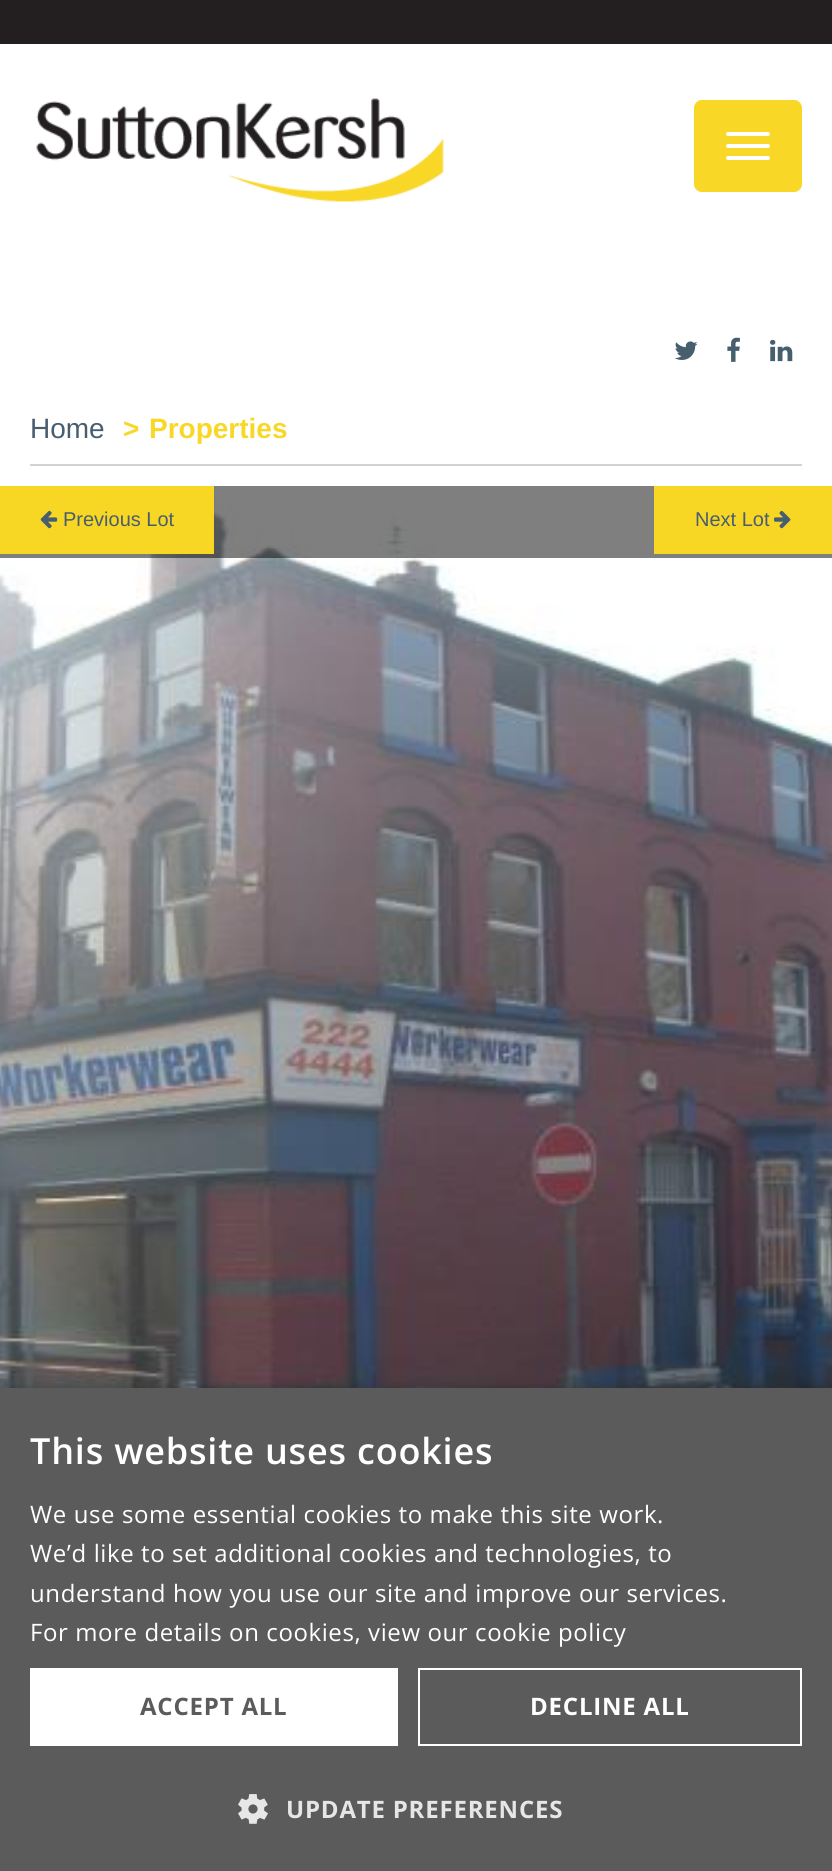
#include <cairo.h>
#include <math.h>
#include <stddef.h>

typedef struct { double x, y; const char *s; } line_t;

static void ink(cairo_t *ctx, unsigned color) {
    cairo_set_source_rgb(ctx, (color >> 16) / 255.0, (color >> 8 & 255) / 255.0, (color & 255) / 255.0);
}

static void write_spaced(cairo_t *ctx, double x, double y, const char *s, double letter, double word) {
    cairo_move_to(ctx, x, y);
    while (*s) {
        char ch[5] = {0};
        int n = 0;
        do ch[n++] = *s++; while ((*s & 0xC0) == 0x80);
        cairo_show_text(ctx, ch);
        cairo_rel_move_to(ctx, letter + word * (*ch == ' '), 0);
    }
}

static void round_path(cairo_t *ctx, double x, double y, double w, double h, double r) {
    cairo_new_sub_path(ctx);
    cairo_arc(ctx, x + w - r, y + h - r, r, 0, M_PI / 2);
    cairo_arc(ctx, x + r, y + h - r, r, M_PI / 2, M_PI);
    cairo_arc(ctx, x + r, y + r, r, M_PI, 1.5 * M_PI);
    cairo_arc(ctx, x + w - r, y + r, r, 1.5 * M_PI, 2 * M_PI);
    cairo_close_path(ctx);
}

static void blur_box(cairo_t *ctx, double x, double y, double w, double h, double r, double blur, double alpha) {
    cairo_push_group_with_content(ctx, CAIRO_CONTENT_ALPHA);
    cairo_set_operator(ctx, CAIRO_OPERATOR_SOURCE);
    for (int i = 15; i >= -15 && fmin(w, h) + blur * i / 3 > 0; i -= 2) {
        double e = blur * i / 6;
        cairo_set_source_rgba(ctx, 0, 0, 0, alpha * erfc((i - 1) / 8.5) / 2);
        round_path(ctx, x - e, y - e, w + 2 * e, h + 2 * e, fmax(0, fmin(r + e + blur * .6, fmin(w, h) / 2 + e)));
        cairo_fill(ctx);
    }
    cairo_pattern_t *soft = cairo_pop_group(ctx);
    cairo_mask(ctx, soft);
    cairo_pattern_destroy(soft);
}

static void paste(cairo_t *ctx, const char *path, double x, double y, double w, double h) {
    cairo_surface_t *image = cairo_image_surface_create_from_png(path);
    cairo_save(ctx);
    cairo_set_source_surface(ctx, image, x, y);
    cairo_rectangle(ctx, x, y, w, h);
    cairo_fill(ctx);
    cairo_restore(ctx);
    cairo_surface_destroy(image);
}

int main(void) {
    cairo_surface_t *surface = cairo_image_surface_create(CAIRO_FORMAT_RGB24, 832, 1871);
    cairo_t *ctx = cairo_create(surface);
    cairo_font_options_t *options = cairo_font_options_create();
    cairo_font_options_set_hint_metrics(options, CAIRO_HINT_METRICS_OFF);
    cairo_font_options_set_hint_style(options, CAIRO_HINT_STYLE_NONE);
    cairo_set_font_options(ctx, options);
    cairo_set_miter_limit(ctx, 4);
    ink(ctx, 0xFFFFFF);
    cairo_paint(ctx);
    ink(ctx, 0x231F20);
    cairo_rectangle(ctx, 0, 0, 832, 44);
    cairo_fill(ctx);
    paste(ctx, "media/1.png", 36, 98, 408, 104);
    ink(ctx, 0xF8D726);
    round_path(ctx, 694, 100, 108, 92, 8);
    cairo_fill(ctx);
    ink(ctx, 0xFFFFFF);
    round_path(ctx, 726, 132, 44, 4, 2);
    cairo_fill(ctx);
    round_path(ctx, 726, 144, 44, 4, 2);
    cairo_fill(ctx);
    round_path(ctx, 726, 156, 44, 4, 2);
    cairo_fill(ctx);
    paste(ctx, "media/2.png", 674, 341, 24, 19);
    paste(ctx, "media/3.png", 727, 337, 13, 25);
    paste(ctx, "media/4.png", 770, 339, 23, 23);
    ink(ctx, 0xD2D3D5);
    cairo_rectangle(ctx, 30, 464, 772, 2);
    cairo_fill(ctx);
    cairo_select_font_face(ctx, "Liberation Sans", CAIRO_FONT_SLANT_NORMAL, CAIRO_FONT_WEIGHT_NORMAL);
    cairo_set_font_size(ctx, 28);
    ink(ctx, 0x485E70);
    cairo_move_to(ctx, 30, 438);
    cairo_show_text(ctx, "Home");
    cairo_select_font_face(ctx, "Liberation Sans", CAIRO_FONT_SLANT_NORMAL, CAIRO_FONT_WEIGHT_BOLD);
    ink(ctx, 0xF8D726);
    cairo_move_to(ctx, 123, 438);
    cairo_show_text(ctx, ">");
    cairo_move_to(ctx, 149, 438);
    cairo_show_text(ctx, "Properties");
    paste(ctx, "media/5.png", 0, 486, 832, 902);
    cairo_set_source_rgba(ctx, 0, 0, 0, 0.5);
    cairo_rectangle(ctx, 0, 486, 832, 72);
    cairo_fill(ctx);
    ink(ctx, 0xF8D724);
    cairo_rectangle(ctx, 0, 486, 214, 68);
    cairo_fill(ctx);
    paste(ctx, "media/6.png", 40, 510, 18, 19);
    cairo_select_font_face(ctx, "Liberation Sans", CAIRO_FONT_SLANT_NORMAL, CAIRO_FONT_WEIGHT_NORMAL);
    cairo_set_font_size(ctx, 20);
    ink(ctx, 0x485E70);
    cairo_move_to(ctx, 63, 526);
    cairo_show_text(ctx, "Previous Lot");
    ink(ctx, 0xF8D724);
    cairo_rectangle(ctx, 654, 486, 178, 68);
    cairo_fill(ctx);
    ink(ctx, 0x485E70);
    cairo_move_to(ctx, 695, 526);
    cairo_show_text(ctx, "Next Lot");
    paste(ctx, "media/7.png", 774, 510, 17, 19);
    ink(ctx, 0x000000);
    blur_box(ctx, 2, 1392, 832, 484, 0, 8, 0.35);
    ink(ctx, 0x5B5B5B);
    cairo_rectangle(ctx, 0, 1388, 832, 483);
    cairo_fill(ctx);
    cairo_select_font_face(ctx, "Open Sans SemiBold", CAIRO_FONT_SLANT_NORMAL, CAIRO_FONT_WEIGHT_NORMAL);
    cairo_set_font_size(ctx, 36);
    ink(ctx, 0xFFFFFF);
    write_spaced(ctx, 30, 1464, "This website uses cookies", 0.8, 0);
    cairo_select_font_face(ctx, "Open Sans", CAIRO_FONT_SLANT_NORMAL, CAIRO_FONT_WEIGHT_NORMAL);
    cairo_set_font_size(ctx, 24);
    {
        static const line_t items[] = {
            {30, 1523, "We use some essential cookies to make this site work."},
            {30, 1562, "We’d like to set additional cookies and technologies, to"},
            {30, 1602, "understand how you use our site and improve our services."},
            {30, 1641, "For more details on cookies, view our cookie policy"},
        };
        for (size_t i = 0; i < sizeof items / sizeof *items; i++) {
            write_spaced(ctx, items[i].x, items[i].y, items[i].s, 0.6, 0);
        }
    }
    cairo_rectangle(ctx, 30, 1668, 368, 78);
    cairo_fill(ctx);
    cairo_select_font_face(ctx, "Open Sans", CAIRO_FONT_SLANT_NORMAL, CAIRO_FONT_WEIGHT_BOLD);
    ink(ctx, 0x5B5B5B);
    write_spaced(ctx, 140, 1715, "ACCEPT ALL", 0.8, 0);
    cairo_rectangle(ctx, 419, 1669, 382, 76);
    ink(ctx, 0xFFFFFF);
    cairo_stroke(ctx);
    write_spaced(ctx, 530, 1715, "DECLINE ALL", 0.8, 0);
    paste(ctx, "media/8.png", 238, 1794, 30, 30);
    ink(ctx, 0xE6E6E6);
    write_spaced(ctx, 286, 1818, "UPDATE PREFERENCES", 0.8, 0);
    cairo_surface_write_to_png(surface, "image.png");
    cairo_font_options_destroy(options);
    cairo_destroy(ctx);
    cairo_surface_destroy(surface);
    return 0;
}
